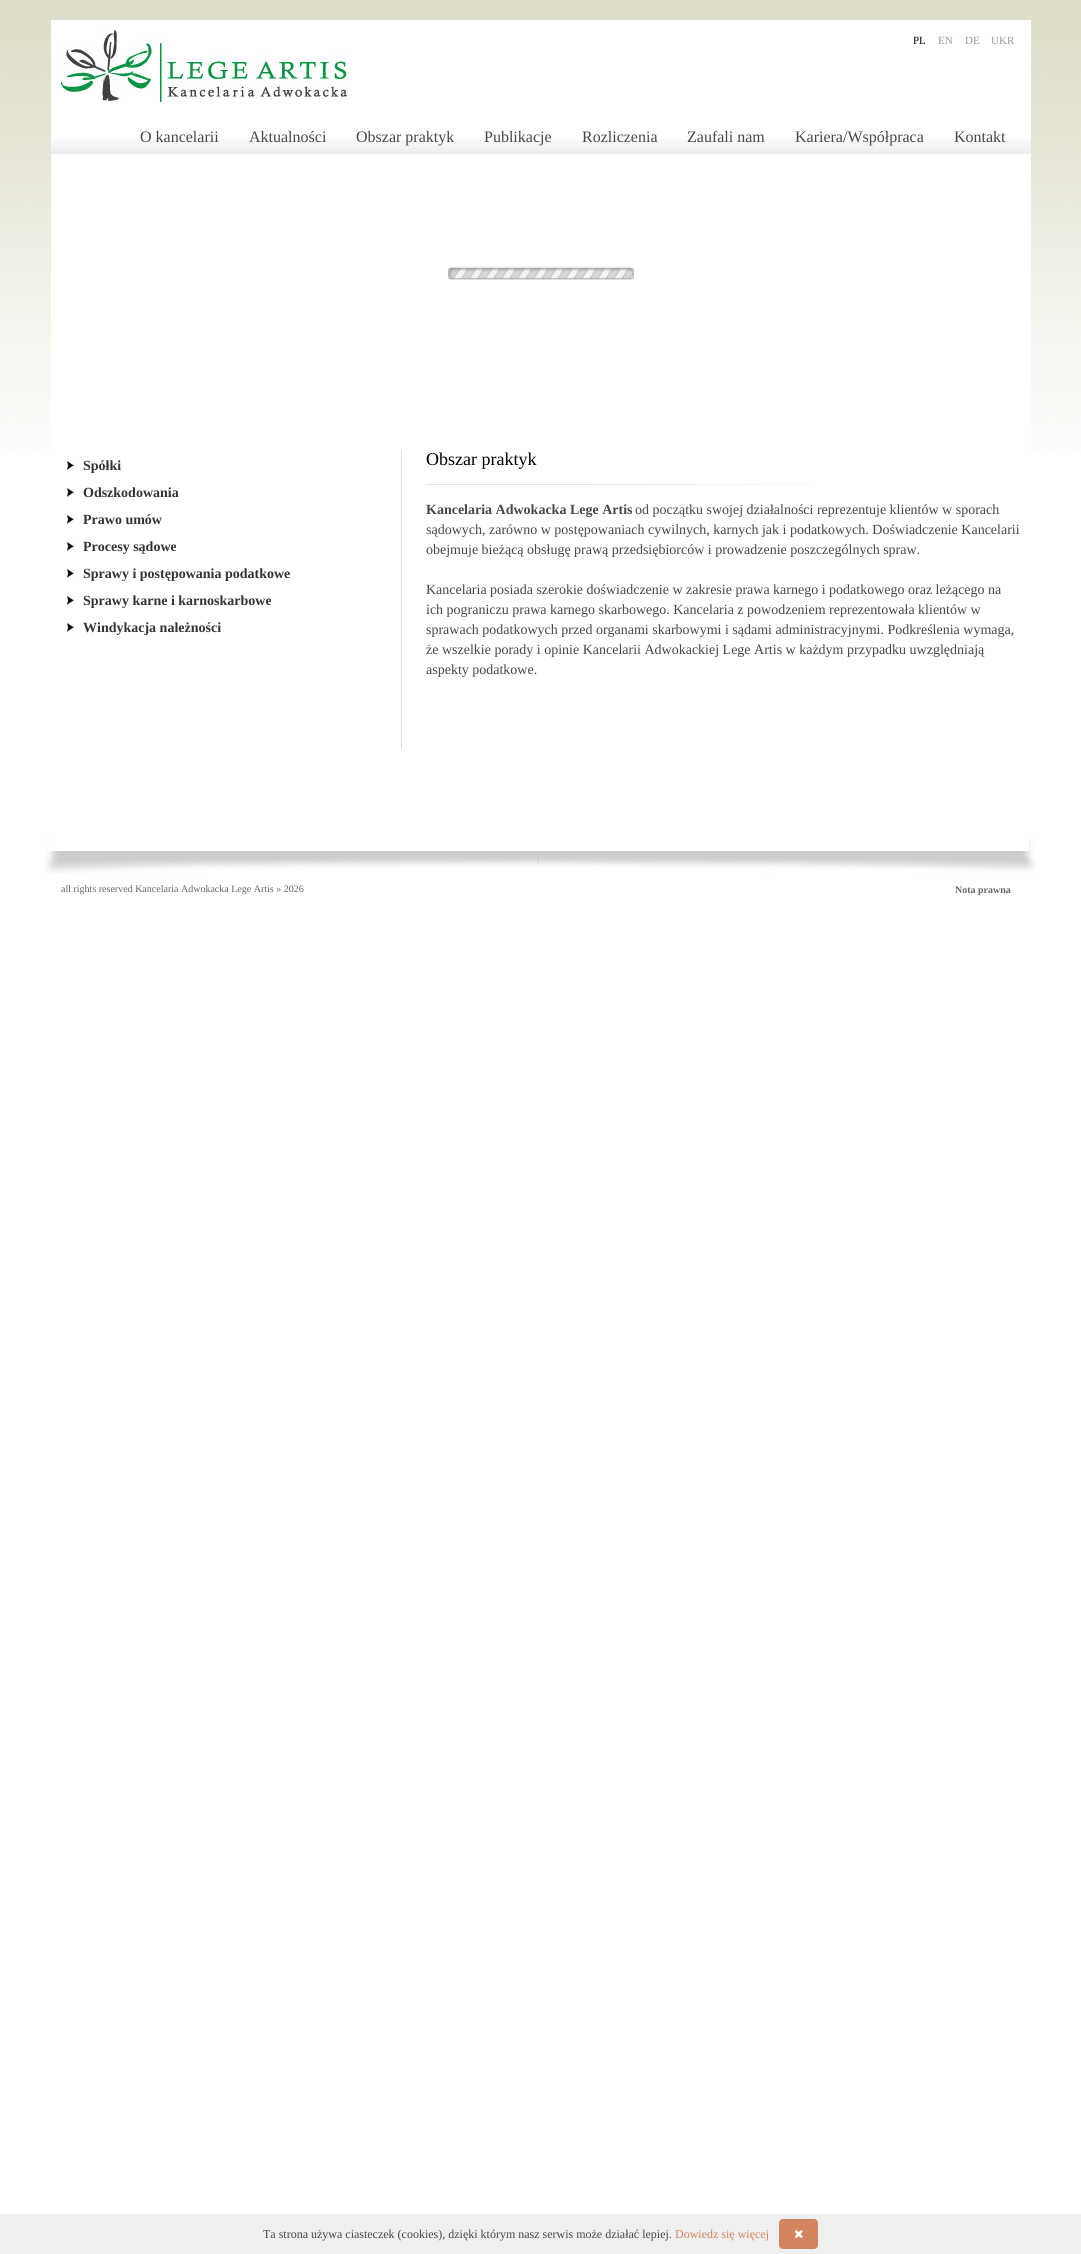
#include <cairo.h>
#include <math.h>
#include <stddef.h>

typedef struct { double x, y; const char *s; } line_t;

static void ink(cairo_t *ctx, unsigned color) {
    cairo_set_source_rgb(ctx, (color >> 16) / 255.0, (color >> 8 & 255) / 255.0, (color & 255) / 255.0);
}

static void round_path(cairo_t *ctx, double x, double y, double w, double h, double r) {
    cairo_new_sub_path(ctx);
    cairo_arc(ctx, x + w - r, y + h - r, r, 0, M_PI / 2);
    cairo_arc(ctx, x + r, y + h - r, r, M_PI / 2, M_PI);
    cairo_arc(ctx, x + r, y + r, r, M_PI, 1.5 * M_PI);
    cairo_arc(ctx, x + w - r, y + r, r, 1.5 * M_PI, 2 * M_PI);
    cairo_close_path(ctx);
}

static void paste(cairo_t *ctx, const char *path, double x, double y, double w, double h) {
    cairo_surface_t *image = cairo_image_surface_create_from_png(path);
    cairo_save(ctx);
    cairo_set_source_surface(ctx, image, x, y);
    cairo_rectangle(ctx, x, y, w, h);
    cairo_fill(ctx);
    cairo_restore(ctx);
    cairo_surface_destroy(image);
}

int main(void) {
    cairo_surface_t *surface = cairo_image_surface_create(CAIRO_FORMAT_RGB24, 1081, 2254);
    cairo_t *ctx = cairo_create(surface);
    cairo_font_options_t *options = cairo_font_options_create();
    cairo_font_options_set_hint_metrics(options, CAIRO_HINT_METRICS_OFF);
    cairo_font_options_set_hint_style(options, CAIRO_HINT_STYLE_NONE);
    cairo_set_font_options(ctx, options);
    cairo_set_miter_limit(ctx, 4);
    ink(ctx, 0xFFFFFF);
    cairo_paint(ctx);
    paste(ctx, "media/1.png", 0, 0, 1081, 450);
    ink(ctx, 0xFFFFFF);
    cairo_rectangle(ctx, 51, 20, 980, 430);
    cairo_fill(ctx);
    paste(ctx, "media/2.png", 51, 139, 980, 15);
    paste(ctx, "media/3.png", 61, 30, 288, 72);
    cairo_select_font_face(ctx, "Liberation Serif", CAIRO_FONT_SLANT_NORMAL, CAIRO_FONT_WEIGHT_NORMAL);
    cairo_set_font_size(ctx, 11);
    ink(ctx, 0x000000);
    cairo_move_to(ctx, 913, 44);
    cairo_show_text(ctx, "PL");
    ink(ctx, 0x999999);
    {
        static const line_t items[] = {
            {938, 44, "EN"},
            {965, 44, "DE"},
            {991, 44, "UKR"},
        };
        for (size_t i = 0; i < sizeof items / sizeof *items; i++) {
            cairo_move_to(ctx, items[i].x, items[i].y);
            cairo_show_text(ctx, items[i].s);
        }
    }
    cairo_set_font_size(ctx, 16);
    ink(ctx, 0x474747);
    {
        static const line_t items[] = {
            {140, 142, "O kancelarii"},
            {249, 142, "Aktualności"},
            {356, 142, "Obszar praktyk"},
            {484, 142, "Publikacje"},
            {582, 142, "Rozliczenia"},
            {687, 142, "Zaufali nam"},
            {795, 142, "Kariera/Współpraca"},
            {954, 142, "Kontakt"},
        };
        for (size_t i = 0; i < sizeof items / sizeof *items; i++) {
            cairo_move_to(ctx, items[i].x, items[i].y);
            cairo_show_text(ctx, items[i].s);
        }
    }
    paste(ctx, "media/4.png", 448, 267, 186, 13);
    ink(ctx, 0xDDDDDD);
    cairo_rectangle(ctx, 401, 449, 1, 300);
    cairo_fill(ctx);
    paste(ctx, "media/5.png", 67, 461, 7, 9);
    cairo_select_font_face(ctx, "Liberation Serif", CAIRO_FONT_SLANT_NORMAL, CAIRO_FONT_WEIGHT_BOLD);
    cairo_set_font_size(ctx, 14);
    ink(ctx, 0x333333);
    cairo_move_to(ctx, 83, 470);
    cairo_show_text(ctx, "Spółki");
    paste(ctx, "media/5.png", 67, 488, 7, 9);
    cairo_move_to(ctx, 83, 497);
    cairo_show_text(ctx, "Odszkodowania");
    paste(ctx, "media/5.png", 67, 515, 7, 9);
    cairo_move_to(ctx, 83, 524);
    cairo_show_text(ctx, "Prawo umów");
    paste(ctx, "media/5.png", 67, 542, 7, 9);
    cairo_move_to(ctx, 83, 551);
    cairo_show_text(ctx, "Procesy sądowe");
    paste(ctx, "media/5.png", 67, 569, 7, 9);
    cairo_move_to(ctx, 83, 578);
    cairo_show_text(ctx, "Sprawy i postępowania podatkowe");
    paste(ctx, "media/5.png", 67, 596, 7, 9);
    cairo_move_to(ctx, 83, 605);
    cairo_show_text(ctx, "Sprawy karne i karnoskarbowe");
    paste(ctx, "media/5.png", 67, 623, 7, 9);
    cairo_move_to(ctx, 83, 632);
    cairo_show_text(ctx, "Windykacja należności");
    paste(ctx, "media/6.png", 426, 484, 390, 1);
    cairo_select_font_face(ctx, "Liberation Serif", CAIRO_FONT_SLANT_NORMAL, CAIRO_FONT_WEIGHT_NORMAL);
    cairo_set_font_size(ctx, 18);
    ink(ctx, 0x000000);
    cairo_move_to(ctx, 426, 465);
    cairo_show_text(ctx, "Obszar praktyk");
    cairo_select_font_face(ctx, "Liberation Serif", CAIRO_FONT_SLANT_NORMAL, CAIRO_FONT_WEIGHT_BOLD);
    cairo_set_font_size(ctx, 14);
    ink(ctx, 0x474747);
    cairo_move_to(ctx, 426, 514);
    cairo_show_text(ctx, "Kancelaria Adwokacka Lege Artis");
    cairo_select_font_face(ctx, "Liberation Serif", CAIRO_FONT_SLANT_NORMAL, CAIRO_FONT_WEIGHT_NORMAL);
    {
        static const line_t items[] = {
            {635, 514, "od początku swojej działalności reprezentuje klientów w sporach"},
            {426, 534, "sądowych, zarówno w postępowaniach cywilnych, karnych jak i podatkowych. Doświadczenie Kancelarii"},
            {426, 554, "obejmuje bieżącą obsługę prawą przedsiębiorców i prowadzenie poszczególnych spraw."},
            {426, 594, "Kancelaria posiada szerokie doświadczenie w zakresie prawa karnego i podatkowego oraz leżącego na"},
            {426, 614, "ich pograniczu prawa karnego skarbowego. Kancelaria z powodzeniem reprezentowała klientów w"},
            {426, 634, "sprawach podatkowych przed organami skarbowymi i sądami administracyjnymi. Podkreślenia wymaga,"},
            {426, 654, "że wszelkie porady i opinie Kancelarii Adwokackiej Lege Artis w każdym przypadku uwzględniają"},
            {426, 674, "aspekty podatkowe."},
        };
        for (size_t i = 0; i < sizeof items / sizeof *items; i++) {
            cairo_move_to(ctx, items[i].x, items[i].y);
            cairo_show_text(ctx, items[i].s);
        }
    }
    paste(ctx, "media/7.png", 45, 839, 991, 34);
    cairo_set_font_size(ctx, 10);
    ink(ctx, 0x666666);
    cairo_move_to(ctx, 61, 892);
    cairo_show_text(ctx, "all rights reserved Kancelaria Adwokacka Lege Artis » 2026");
    cairo_select_font_face(ctx, "Liberation Serif", CAIRO_FONT_SLANT_NORMAL, CAIRO_FONT_WEIGHT_BOLD);
    cairo_move_to(ctx, 955, 893);
    cairo_show_text(ctx, "Nota prawna");
    ink(ctx, 0xEFEFEF);
    cairo_rectangle(ctx, 0, 2214, 1081, 40);
    cairo_fill(ctx);
    cairo_select_font_face(ctx, "Liberation Serif", CAIRO_FONT_SLANT_NORMAL, CAIRO_FONT_WEIGHT_NORMAL);
    cairo_set_font_size(ctx, 12);
    ink(ctx, 0x474747);
    cairo_move_to(ctx, 263, 2238);
    cairo_show_text(ctx, "Ta strona używa ciasteczek (cookies), dzięki którym nasz serwis może działać lepiej.");
    ink(ctx, 0xD28560);
    cairo_move_to(ctx, 675, 2238);
    cairo_show_text(ctx, "Dowiedz się więcej");
    round_path(ctx, 779, 2219, 39, 30, 4);
    cairo_fill(ctx);
    paste(ctx, "media/8.png", 794, 2230, 9, 9);
    cairo_surface_write_to_png(surface, "image.png");
    cairo_font_options_destroy(options);
    cairo_destroy(ctx);
    cairo_surface_destroy(surface);
    return 0;
}
